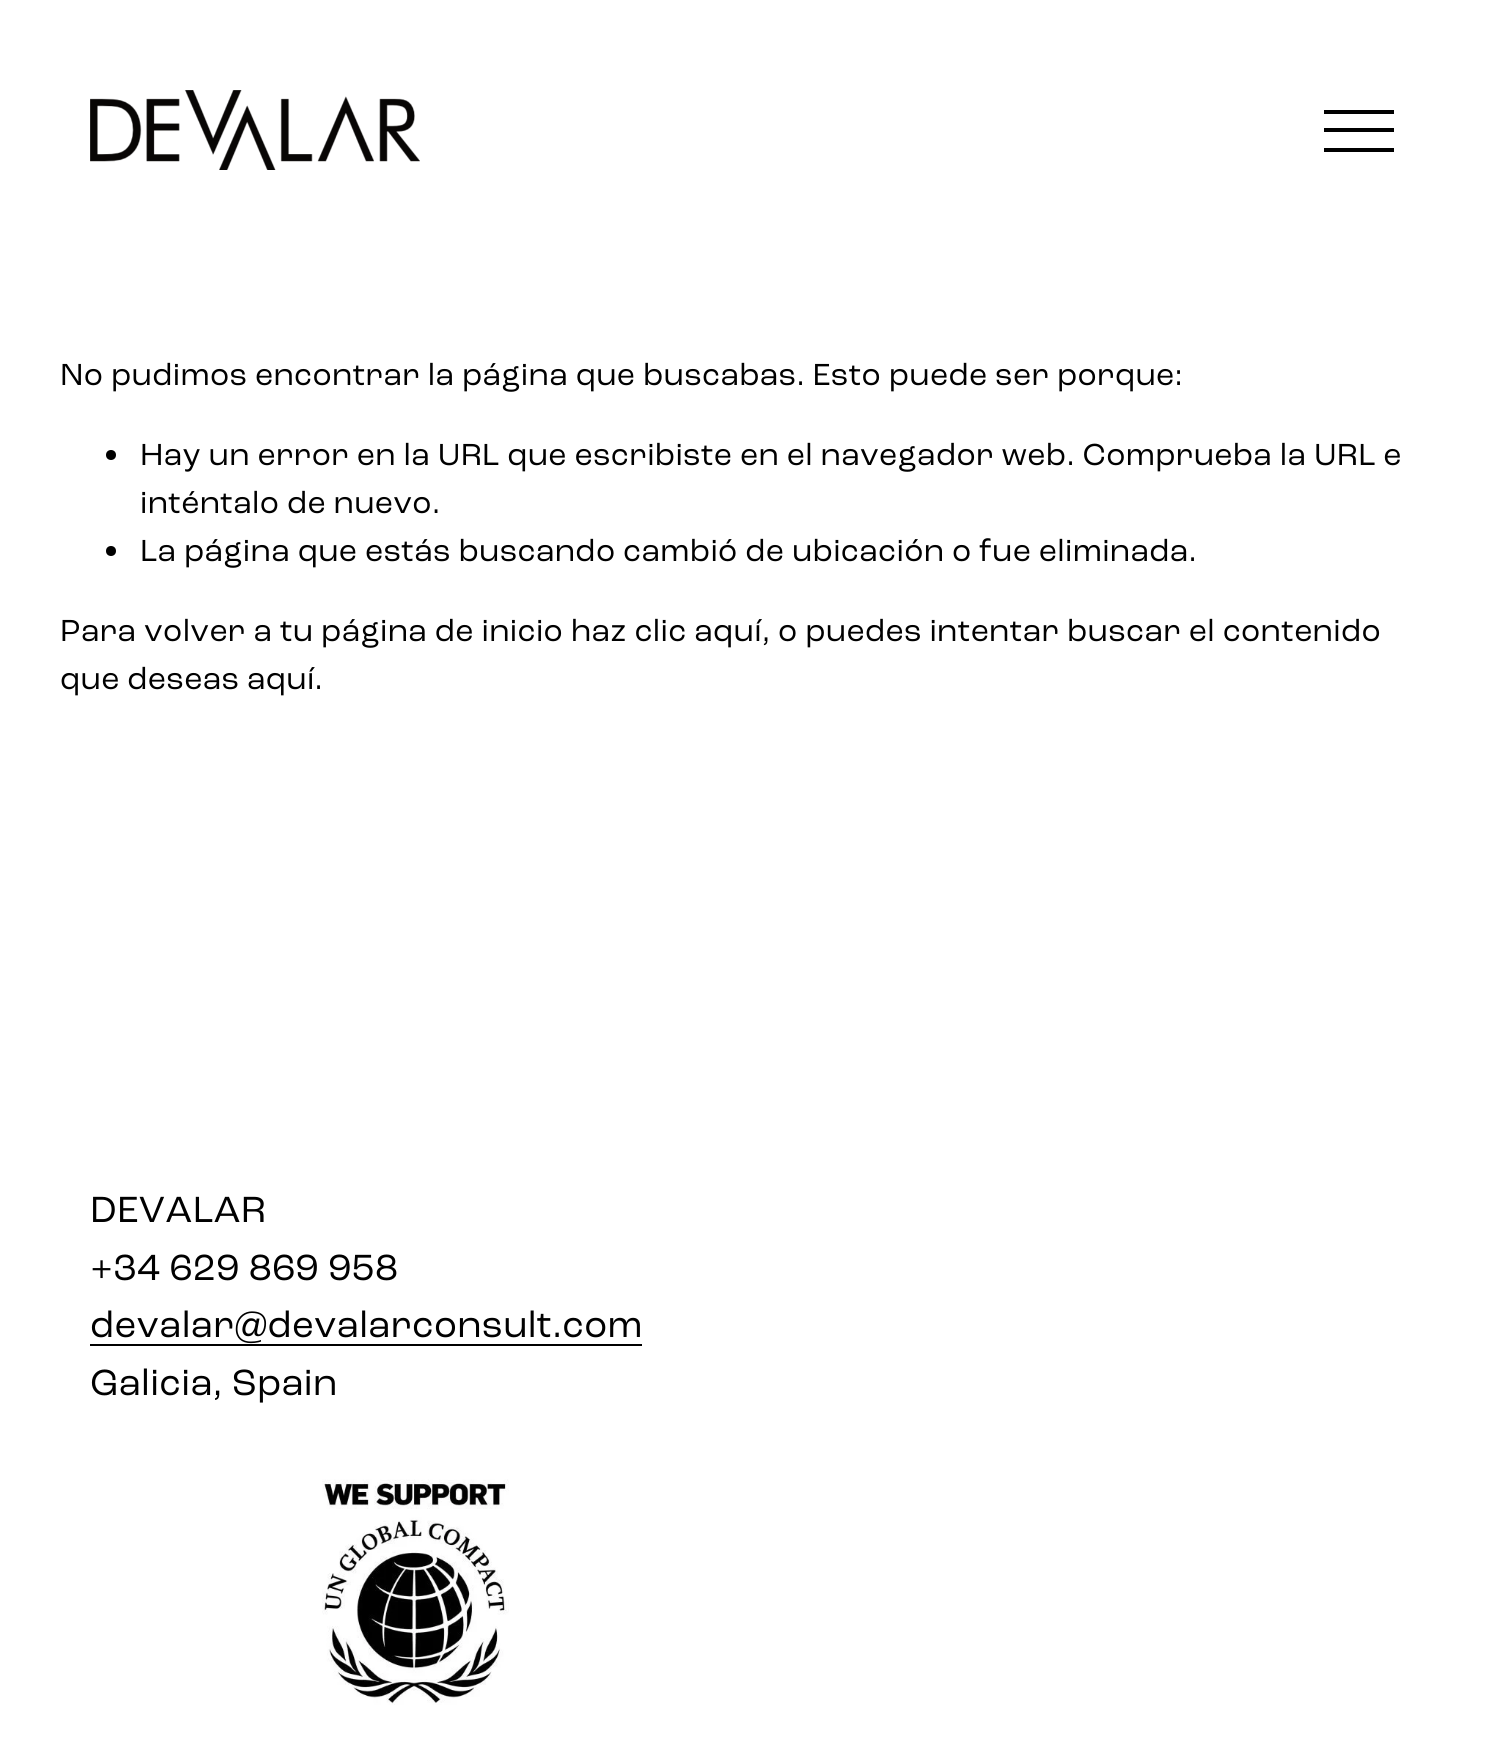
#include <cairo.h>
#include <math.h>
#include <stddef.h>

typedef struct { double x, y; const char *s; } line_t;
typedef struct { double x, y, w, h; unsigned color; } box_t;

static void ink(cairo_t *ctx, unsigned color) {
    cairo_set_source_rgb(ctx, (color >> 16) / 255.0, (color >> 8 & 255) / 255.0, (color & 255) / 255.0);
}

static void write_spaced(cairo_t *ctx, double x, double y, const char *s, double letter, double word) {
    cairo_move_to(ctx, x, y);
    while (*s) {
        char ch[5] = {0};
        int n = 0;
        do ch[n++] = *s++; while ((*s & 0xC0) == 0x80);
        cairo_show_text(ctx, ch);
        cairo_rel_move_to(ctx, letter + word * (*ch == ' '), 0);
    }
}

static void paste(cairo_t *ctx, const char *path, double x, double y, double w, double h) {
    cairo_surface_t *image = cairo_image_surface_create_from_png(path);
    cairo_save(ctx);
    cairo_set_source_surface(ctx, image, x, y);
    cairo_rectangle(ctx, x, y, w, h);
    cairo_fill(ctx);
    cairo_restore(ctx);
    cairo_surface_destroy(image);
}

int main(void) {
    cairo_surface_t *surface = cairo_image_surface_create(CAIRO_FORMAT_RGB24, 1495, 1751);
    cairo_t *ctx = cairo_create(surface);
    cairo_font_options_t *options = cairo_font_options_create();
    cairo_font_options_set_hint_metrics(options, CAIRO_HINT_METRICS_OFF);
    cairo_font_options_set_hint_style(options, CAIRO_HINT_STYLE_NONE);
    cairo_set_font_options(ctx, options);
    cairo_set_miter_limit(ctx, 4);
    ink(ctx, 0xFFFFFF);
    cairo_paint(ctx);
    paste(ctx, "media/1.png", 90, 90, 330, 80);
    {
        static const box_t items[] = {
            {1324, 110, 70, 4, 0x000000},
            {1324, 128, 70, 4, 0x000000},
            {1324, 148, 70, 4, 0x000000},
        };
        for (size_t i = 0; i < sizeof items / sizeof *items; i++) {
            ink(ctx, items[i].color);
            cairo_rectangle(ctx, items[i].x, items[i].y, items[i].w, items[i].h);
            cairo_fill(ctx);
        }
    }
    cairo_select_font_face(ctx, "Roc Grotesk", CAIRO_FONT_SLANT_NORMAL, CAIRO_FONT_WEIGHT_NORMAL);
    cairo_set_font_size(ctx, 32);
    write_spaced(ctx, 60, 385, "No pudimos encontrar la página que buscabas. Esto puede ser porque:", 0.32, 0);
    cairo_new_path(ctx);
    cairo_arc(ctx, 111, 455, 5, 0, 2 * M_PI);
    cairo_fill(ctx);
    write_spaced(ctx, 140, 465, "Hay un error en la URL que escribiste en el navegador web. Comprueba la URL e", 0.32, 0);
    write_spaced(ctx, 140, 513, "inténtalo de nuevo.", 0.32, 0);
    cairo_new_path(ctx);
    cairo_arc(ctx, 111, 551, 5, 0, 2 * M_PI);
    cairo_fill(ctx);
    {
        static const line_t items[] = {
            {140, 561, "La página que estás buscando cambió de ubicación o fue eliminada."},
            {60, 641, "Para volver a tu página de inicio haz clic aquí, o puedes intentar buscar el contenido"},
            {60, 689, "que deseas aquí."},
        };
        for (size_t i = 0; i < sizeof items / sizeof *items; i++) {
            write_spaced(ctx, items[i].x, items[i].y, items[i].s, 0.32, 0);
        }
    }
    cairo_set_font_size(ctx, 38.25);
    {
        static const line_t items[] = {
            {90, 1222, "DEVALAR"},
            {90, 1280, "+34 629 869 958"},
            {90, 1337, "devalar@devalarconsult.com"},
        };
        for (size_t i = 0; i < sizeof items / sizeof *items; i++) {
            write_spaced(ctx, items[i].x, items[i].y, items[i].s, 0.32, 0);
        }
    }
    cairo_rectangle(ctx, 90, 1344, 552, 2);
    cairo_fill(ctx);
    write_spaced(ctx, 90, 1395, "Galicia, Spain", 0.32, 0);
    paste(ctx, "media/2.png", 322, 1479, 187, 226);
    cairo_surface_write_to_png(surface, "image.png");
    cairo_font_options_destroy(options);
    cairo_destroy(ctx);
    cairo_surface_destroy(surface);
    return 0;
}
